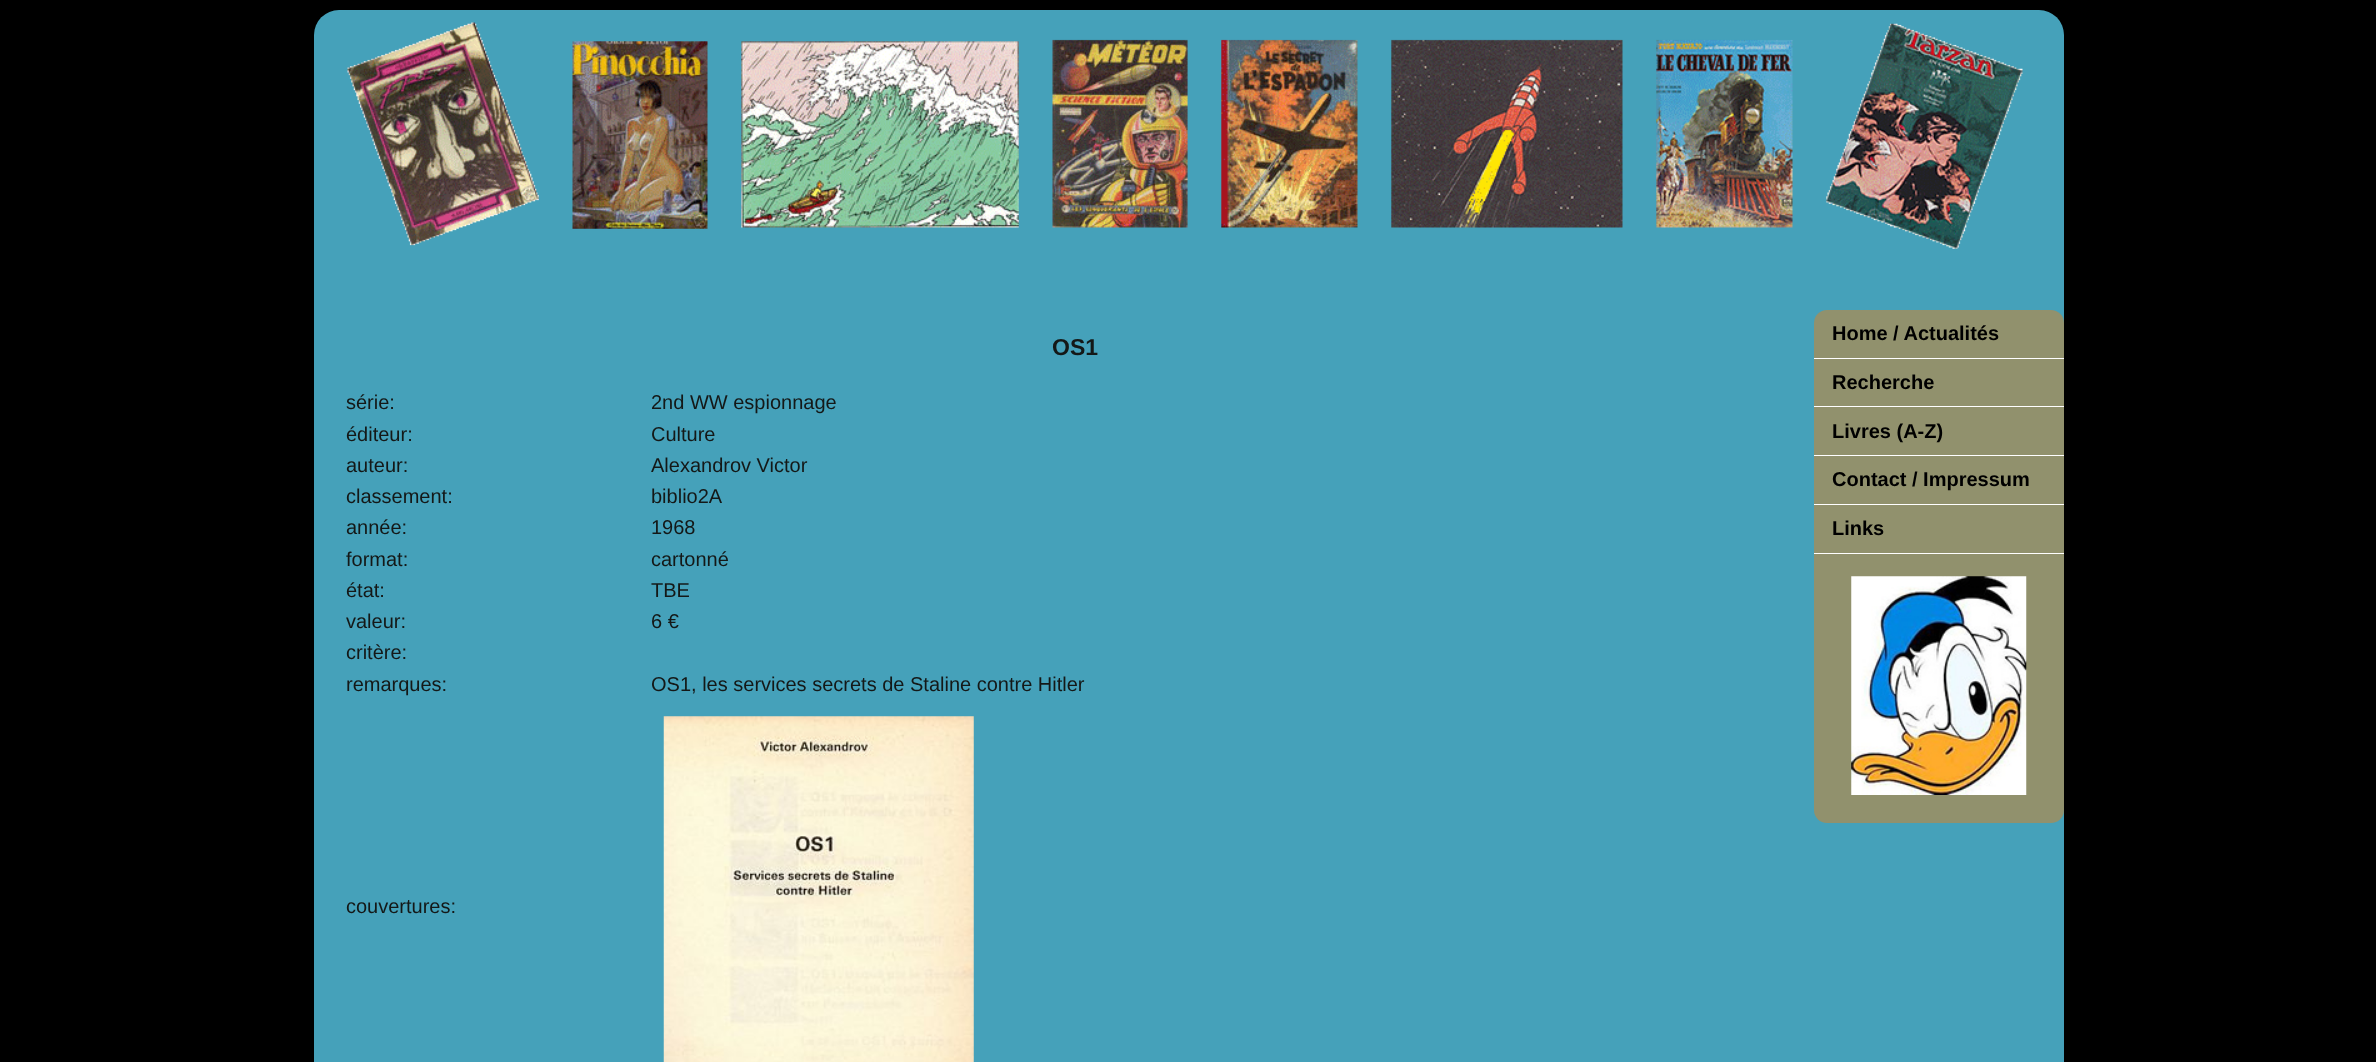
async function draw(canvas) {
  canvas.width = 2376
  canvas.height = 1062
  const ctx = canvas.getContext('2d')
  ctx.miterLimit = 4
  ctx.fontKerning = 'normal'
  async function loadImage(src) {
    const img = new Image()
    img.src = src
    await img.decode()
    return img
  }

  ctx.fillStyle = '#000'
  ctx.fillRect(0, 0, 2376, 1062)
  ctx.fillStyle = '#45a1ba'
  ctx.beginPath()
  ctx.roundRect(314, 10, 1750, 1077, 25)
  ctx.fill()
  ctx.drawImage(await loadImage('image0.png'), 347, 22, 1676, 227)
  ctx.font = 'bold 23px Liberation Sans'
  ctx.fillStyle = '#141817'
  ctx.fillText('OS1', 1052, 355)
  ctx.font = '20px Liberation Sans'
  ctx.fillText('série:', 346, 409)
  ctx.fillText('2nd WW espionnage', 651, 409)
  ctx.fillText('éditeur:', 346, 441)
  ctx.fillText('Culture', 651, 441)
  ctx.fillText('auteur:', 346, 472)
  ctx.fillText('Alexandrov Victor', 651, 472)
  ctx.fillText('classement:', 346, 503)
  ctx.fillText('biblio2A', 651, 503)
  ctx.fillText('année:', 346, 534)
  ctx.fillText('1968', 651, 534)
  ctx.fillText('format:', 346, 566)
  ctx.fillText('cartonné', 651, 566)
  ctx.fillText('état:', 346, 597)
  ctx.fillText('TBE', 651, 597)
  ctx.fillText('valeur:', 346, 628)
  ctx.fillText('6 €', 651, 628)
  ctx.fillText('critère:', 346, 659)
  ctx.fillText('remarques:', 346, 691)
  ctx.fillText('OS1, les services secrets de Staline contre Hitler', 651, 691)
  ctx.fillText('couvertures:', 346, 913)
  ctx.drawImage(await loadImage('image1.png'), 663, 716, 311, 346)
  ctx.fillStyle = '#91916d'
  ctx.beginPath()
  ctx.roundRect(1814, 310, 250, 513, 13)
  ctx.fill()
  ctx.fillStyle = '#fff'
  ctx.fillRect(1814, 358, 250, 1)
  ctx.font = 'bold 20px Liberation Sans'
  ctx.fillStyle = '#000'
  ctx.fillText('Home / Actualités', 1832, 340)
  ctx.fillStyle = '#fff'
  ctx.fillRect(1814, 406, 250, 1)
  ctx.fillStyle = '#000'
  ctx.fillText('Recherche', 1832, 389)
  ctx.fillStyle = '#fff'
  ctx.fillRect(1814, 455, 250, 1)
  ctx.fillStyle = '#000'
  ctx.fillText('Livres (A-Z)', 1832, 438)
  ctx.fillStyle = '#fff'
  ctx.fillRect(1814, 504, 250, 1)
  ctx.fillStyle = '#000'
  ctx.fillText('Contact / Impressum', 1832, 486)
  ctx.fillStyle = '#fff'
  ctx.fillRect(1814, 553, 250, 1)
  ctx.fillStyle = '#000'
  ctx.fillText('Links', 1832, 535)
  ctx.drawImage(await loadImage('image2.png'), 1851, 576, 176, 219)
}

draw(document.querySelector('canvas'))
